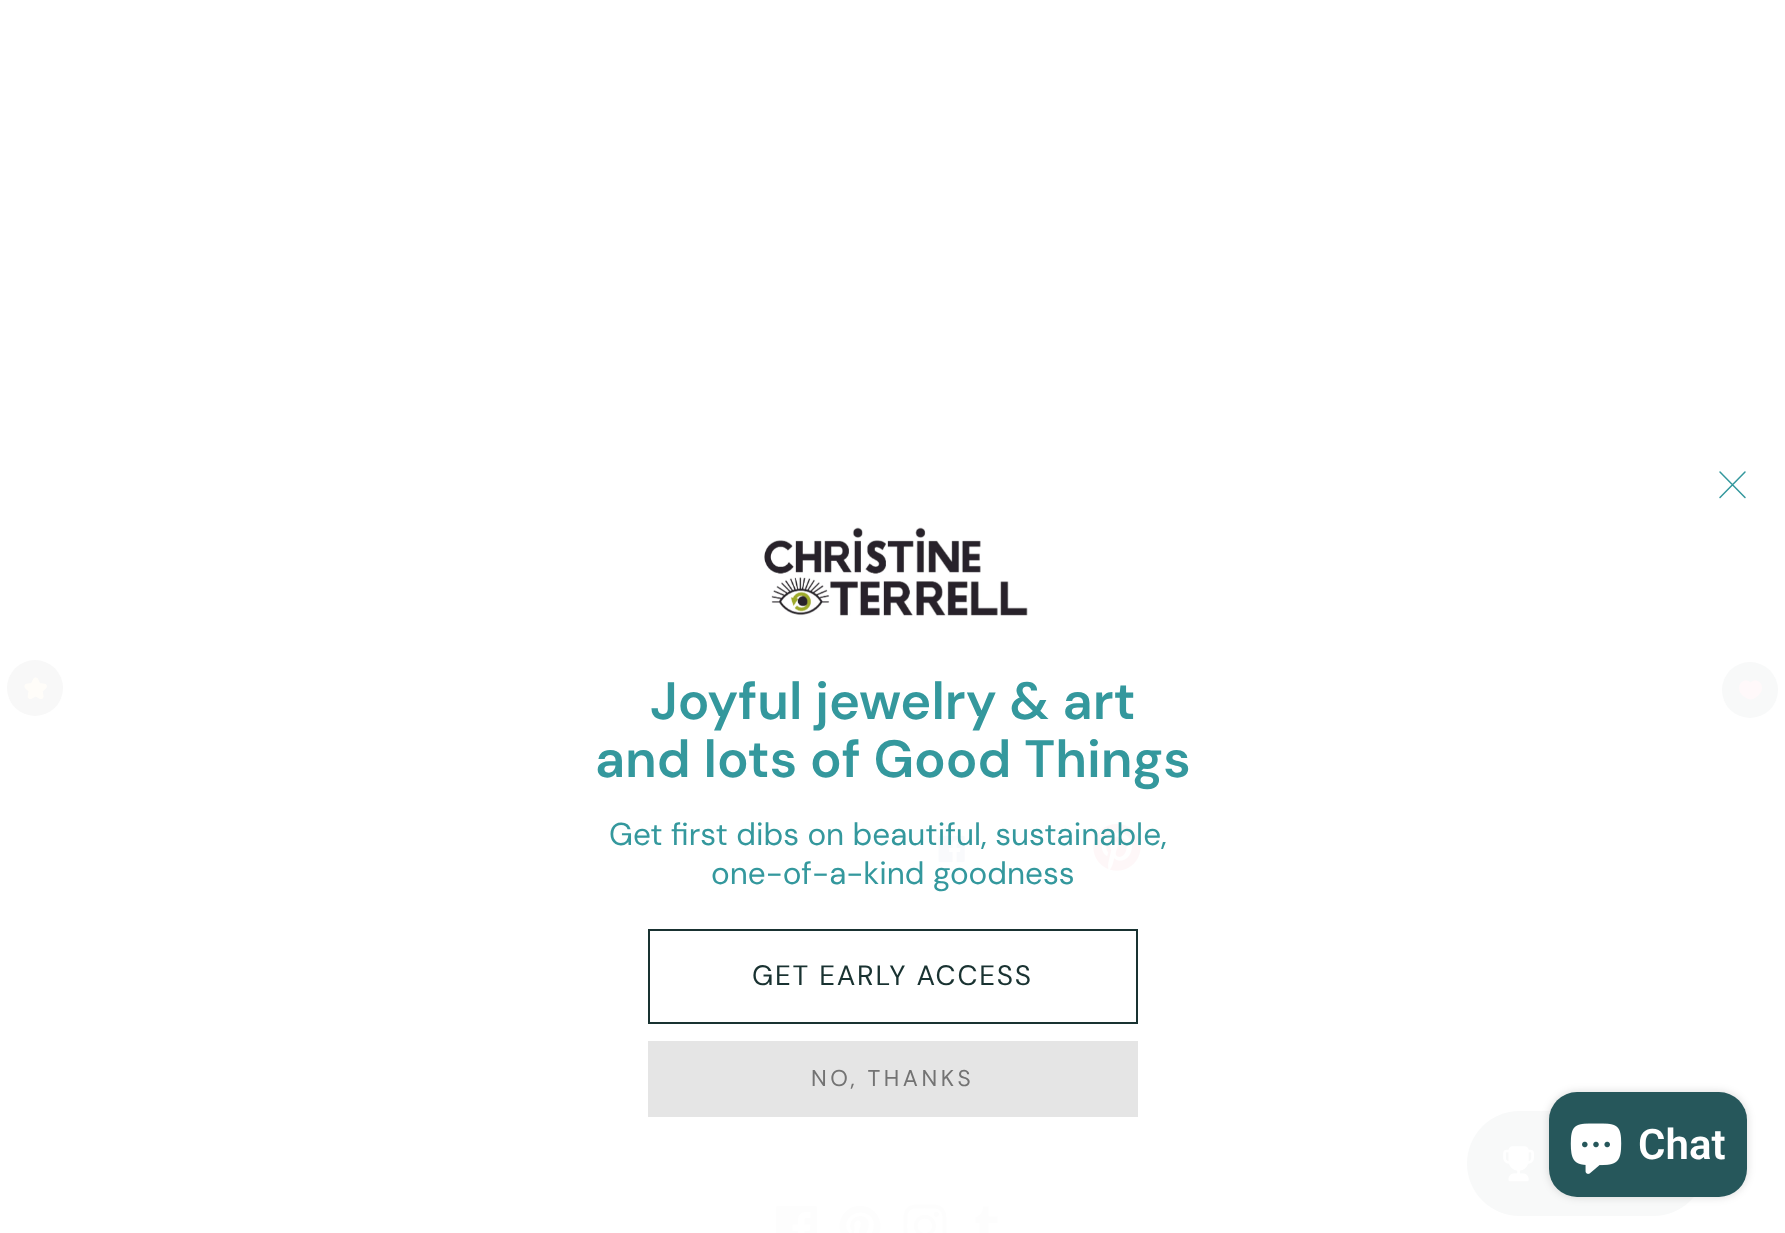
async function draw(canvas) {
  canvas.width = 1785
  canvas.height = 1233
  const ctx = canvas.getContext('2d')
  ctx.miterLimit = 4
  ctx.fontKerning = 'normal'
  async function loadImage(src) {
    const img = new Image()
    img.src = src
    await img.decode()
    return img
  }

  ctx.fillStyle = '#fff'
  ctx.fillRect(0, 0, 1785, 1233)
  ctx.fillStyle = '#f8f8f8'
  ctx.beginPath()
  ctx.arc(35, 688, 28, 0, 2 * Math.PI)
  ctx.fill()
  ctx.drawImage(await loadImage('image0.png'), 24, 677, 23, 23)
  ctx.fillStyle = '#f8f9f9'
  ctx.beginPath()
  ctx.arc(1750, 690, 28, 0, 2 * Math.PI)
  ctx.fill()
  ctx.fillStyle = '#fff9fa'
  ctx.beginPath()
  ctx.moveTo(1750.5, 682.5)
  ctx.bezierCurveTo(1743.5, 675.5, 1732, 688, 1744.5, 697)
  ctx.bezierCurveTo(1746.5, 698, 1748.5, 699.5, 1750.5, 699.5)
  ctx.bezierCurveTo(1752.5, 699.5, 1755, 698, 1756.5, 697)
  ctx.bezierCurveTo(1769, 688, 1758, 675.5, 1750.5, 682.5)
  ctx.closePath()
  ctx.fill()
  ctx.fillStyle = '#f8f9f9'
  ctx.beginPath()
  ctx.roundRect(1467, 1111, 239, 105, 52.5)
  ctx.fill()
  ctx.drawImage(await loadImage('image1.png'), 1503, 1146, 31, 36)
  ctx.beginPath()
  ctx.moveTo(1720, 472)
  ctx.lineTo(1745, 497.5)
  ctx.moveTo(1745, 472)
  ctx.lineTo(1720, 497.5)
  ctx.strokeStyle = '#34989d'
  ctx.lineWidth = 1.5
  ctx.lineCap = 'round'
  ctx.stroke()
  ctx.drawImage(await loadImage('image2.png'), 764, 527, 268, 100)
  ctx.font = '600 52.5px DM Sans'
  ctx.fillStyle = '#34989d'
  ctx.fillText('Joyful jewelry & art', 650, 719)
  ctx.fillText('and lots of Good Things', 595, 777)
  ctx.drawImage(await loadImage('image3.png'), 938, 835, 27, 28)
  ctx.drawImage(await loadImage('image4.png'), 1093, 823, 48, 48)
  ctx.font = '31.5px DM Sans'
  ctx.fillText('Get first dibs on beautiful, sustainable,', 609, 845)
  ctx.fillText('one-of-a-kind goodness', 711, 884)
  ctx.strokeStyle = '#193231'
  ctx.lineWidth = 2
  ctx.strokeRect(649, 930, 488, 93)
  ctx.letterSpacing = '1.75px'
  ctx.font = '28px DM Sans'
  ctx.fillStyle = '#193231'
  ctx.fillText('GET EARLY ACCESS', 752, 985)
  ctx.fillStyle = '#e5e5e5'
  ctx.fillRect(648, 1041, 490, 76)
  ctx.letterSpacing = '3.5px'
  ctx.font = '22.75px DM Sans'
  ctx.fillStyle = '#737373'
  ctx.fillText('NO, THANKS', 811, 1086)
  ctx.drawImage(await loadImage('image5.png'), 776, 1205, 41, 28)
  ctx.drawImage(await loadImage('image6.png'), 839, 1205, 42, 28)
  ctx.drawImage(await loadImage('image7.png'), 903, 1204, 44, 29)
  ctx.drawImage(await loadImage('image8.png'), 975, 1206, 23, 27)
  ctx.fillStyle = '#00000026'
  ctx.filter = 'blur(4.5px)'
  ctx.beginPath()
  ctx.roundRect(1549, 1092, 198, 105, 28)
  ctx.fill()
  ctx.filter = 'none'
  ctx.fillStyle = '#26575b'
  ctx.beginPath()
  ctx.roundRect(1549, 1092, 198, 105, 28)
  ctx.fill()
  ctx.drawImage(await loadImage('image9.png'), 1570, 1123, 52, 51)
  ctx.letterSpacing = '0px'
  ctx.font = '600 42px Roboto'
  ctx.fillStyle = '#fff'
  ctx.fillText('Chat', 1638, 1159)
}

draw(document.querySelector('canvas'))
